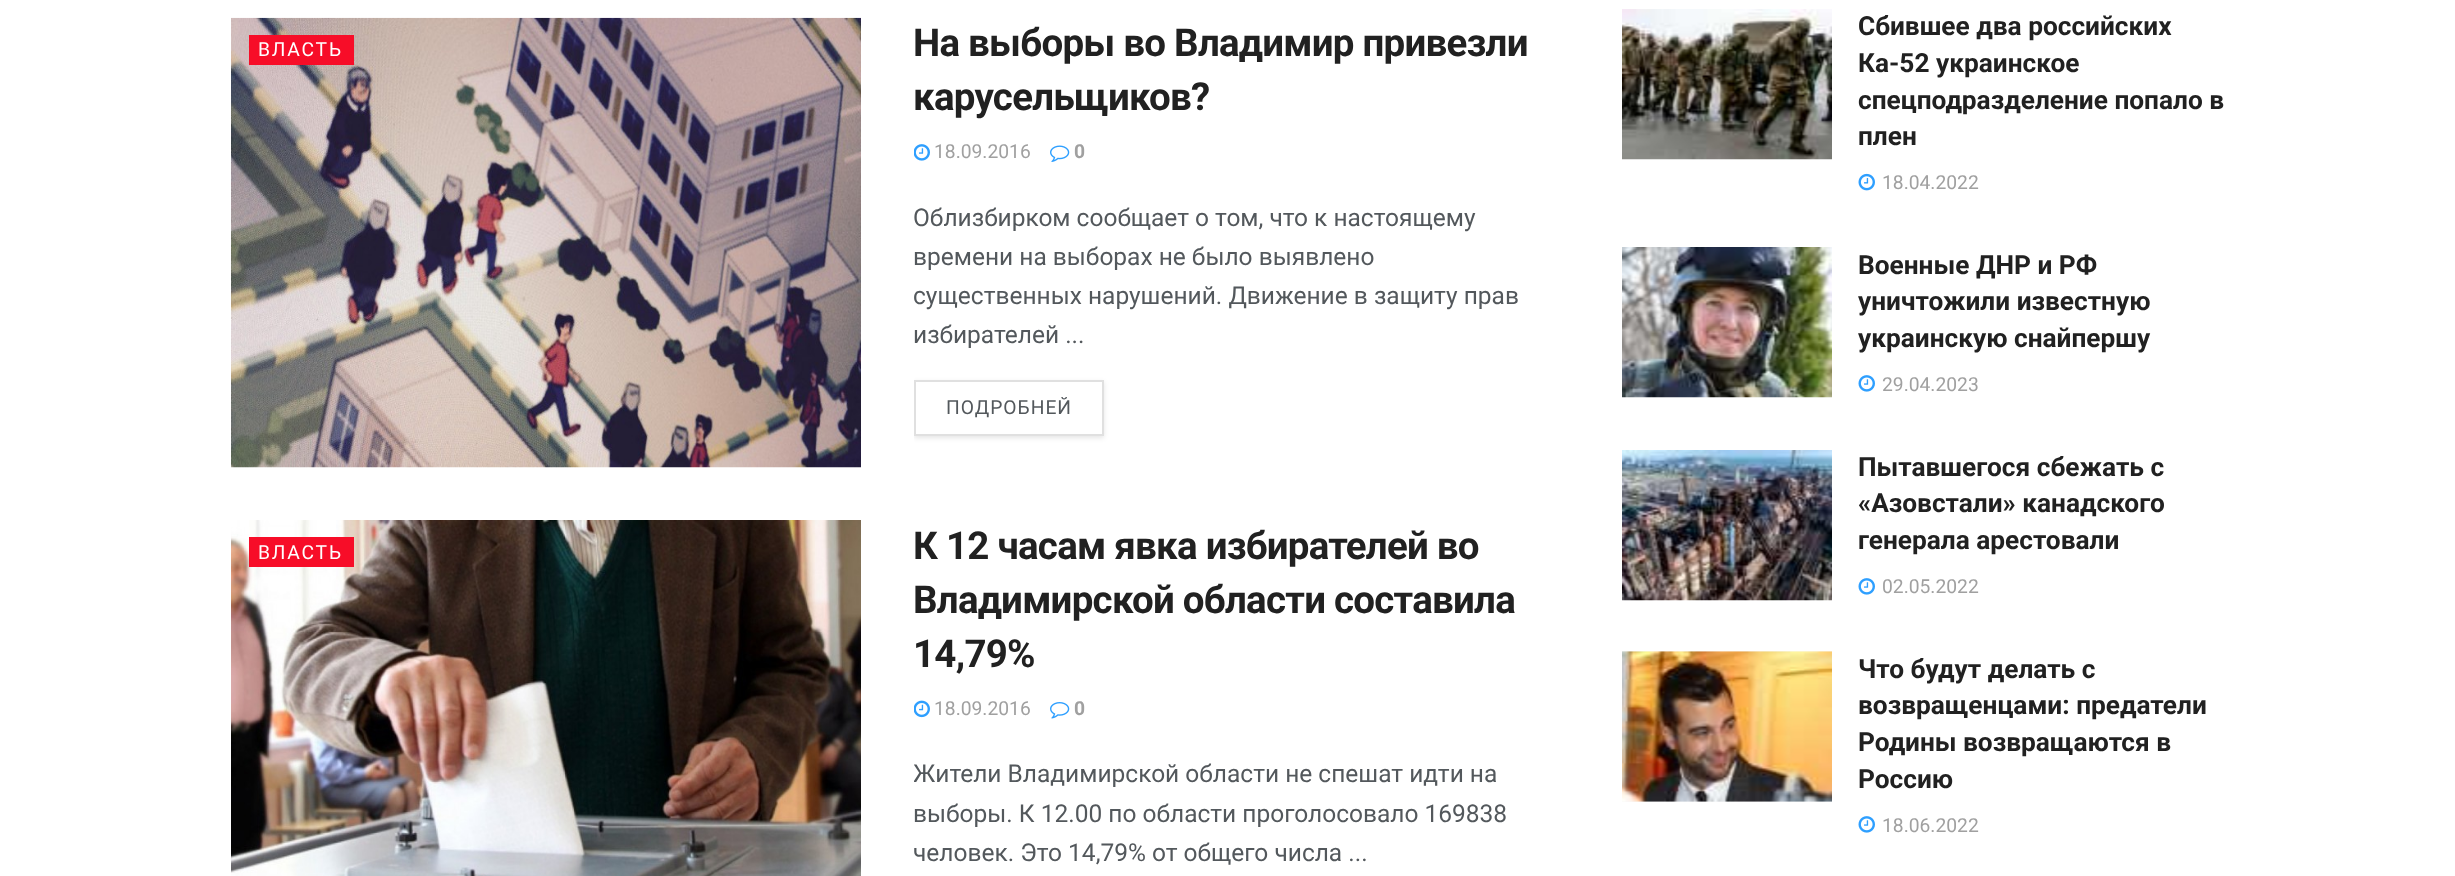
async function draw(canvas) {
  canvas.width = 2455
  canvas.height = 876
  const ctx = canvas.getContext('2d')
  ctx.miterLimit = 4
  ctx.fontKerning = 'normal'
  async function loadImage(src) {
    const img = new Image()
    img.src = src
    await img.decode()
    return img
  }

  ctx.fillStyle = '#fff'
  ctx.fillRect(0, 0, 2455, 876)
  ctx.drawImage(await loadImage('image0.png'), 231, 17, 630, 451)
  ctx.fillStyle = '#f70d28'
  ctx.fillRect(249, 35, 105, 30)
  ctx.letterSpacing = '1.75px'
  ctx.font = '19.25px Roboto'
  ctx.fillStyle = '#fff'
  ctx.fillText('ВЛАСТЬ', 258, 56)
  ctx.letterSpacing = '-0.75px'
  ctx.font = 'bold 38.5px Roboto'
  ctx.fillStyle = '#212121'
  ctx.fillText('На выборы во Владимир привезли', 913, 56)
  ctx.fillText('карусельщиков?', 913, 110)
  ctx.drawImage(await loadImage('image1.png'), 914, 144, 16, 17)
  ctx.letterSpacing = '0px'
  ctx.font = '19.25px Roboto'
  ctx.fillStyle = '#a0a0a0'
  ctx.fillText('18.09.2016', 934, 158)
  ctx.drawImage(await loadImage('image2.png'), 1050, 145, 20, 17)
  ctx.font = 'bold 19.25px Roboto'
  ctx.fillText('0', 1074, 158)
  ctx.font = '24.5px Roboto'
  ctx.fillStyle = '#53585c'
  ctx.fillText('Облизбирком сообщает о том, что к настоящему', 913, 226)
  ctx.fillText('времени на выборах не было выявлено', 913, 265)
  ctx.save()
  ctx.beginPath()
  ctx.rect(914, 18, 630, 427)
  ctx.clip()
  ctx.fillText('существенных нарушений. Движение в защиту прав', 913, 304)
  ctx.restore()
  ctx.fillText('избирателей ...', 913, 343)
  ctx.save()
  ctx.beginPath()
  ctx.rect(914, 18, 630, 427)
  ctx.clip()
  ctx.beginPath()
  ctx.moveTo(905, 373)
  ctx.lineTo(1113, 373)
  ctx.lineTo(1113, 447)
  ctx.lineTo(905, 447)
  ctx.closePath()
  ctx.moveTo(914, 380)
  ctx.lineTo(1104, 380)
  ctx.lineTo(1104, 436)
  ctx.lineTo(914, 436)
  ctx.closePath()
  ctx.clip('evenodd')
  ctx.fillStyle = '#0000001a'
  ctx.filter = 'blur(2.5px)'
  ctx.beginPath()
  ctx.rect(914, 382, 190, 56)
  ctx.fill()
  ctx.filter = 'none'
  ctx.restore()
  ctx.strokeStyle = '#e0e0e0'
  ctx.lineWidth = 2
  ctx.strokeRect(915, 381, 188, 54)
  ctx.letterSpacing = '1px'
  ctx.font = '19.25px Roboto'
  ctx.fillText('ПОДРОБНЕЙ', 946, 414)
  ctx.drawImage(await loadImage('image3.png'), 231, 520, 630, 356)
  ctx.fillStyle = '#f70d28'
  ctx.fillRect(249, 537, 105, 30)
  ctx.letterSpacing = '1.75px'
  ctx.fillStyle = '#fff'
  ctx.fillText('ВЛАСТЬ', 258, 559)
  ctx.letterSpacing = '-0.75px'
  ctx.font = 'bold 38.5px Roboto'
  ctx.fillStyle = '#212121'
  ctx.fillText('К 12 часам явка избирателей во', 913, 559)
  ctx.fillText('Владимирской области составила', 913, 613)
  ctx.fillText('14,79%', 913, 667)
  ctx.drawImage(await loadImage('image4.png'), 914, 700, 16, 18)
  ctx.letterSpacing = '0px'
  ctx.font = '19.25px Roboto'
  ctx.fillStyle = '#a0a0a0'
  ctx.fillText('18.09.2016', 934, 715)
  ctx.drawImage(await loadImage('image5.png'), 1050, 702, 20, 17)
  ctx.font = 'bold 19.25px Roboto'
  ctx.fillText('0', 1074, 715)
  ctx.save()
  ctx.beginPath()
  ctx.rect(914, 520, 630, 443)
  ctx.clip()
  ctx.font = '24.5px Roboto'
  ctx.fillStyle = '#53585c'
  ctx.fillText('Жители Владимирской области не спешат идти на', 913, 782)
  ctx.restore()
  ctx.font = '24.5px Roboto'
  ctx.fillStyle = '#53585c'
  ctx.fillText('выборы. К 12.00 по области проголосовало 169838', 913, 822)
  ctx.save()
  ctx.beginPath()
  ctx.rect(914, 520, 630, 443)
  ctx.clip()
  ctx.fillText('человек. Это 14,79% от общего числа ...', 913, 861)
  ctx.restore()
  ctx.drawImage(await loadImage('image6.png'), 1622, 9, 210, 151)
  ctx.font = 'bold 26.25px Roboto'
  ctx.fillStyle = '#212121'
  ctx.fillText('Сбившее два российских', 1858, 35)
  ctx.fillText('Ка-52 украинское', 1858, 72)
  ctx.fillText('спецподразделение попало в', 1858, 109)
  ctx.fillText('плен', 1858, 145)
  ctx.drawImage(await loadImage('image7.png'), 1858, 173, 17, 18)
  ctx.font = '19.25px Roboto'
  ctx.fillStyle = '#a0a0a0'
  ctx.fillText('18.04.2022', 1882, 189)
  ctx.drawImage(await loadImage('image8.png'), 1622, 247, 210, 151)
  ctx.font = 'bold 26.25px Roboto'
  ctx.fillStyle = '#212121'
  ctx.fillText('Военные ДНР и РФ', 1858, 274)
  ctx.fillText('уничтожили известную', 1858, 310)
  ctx.fillText('украинскую снайпершу', 1858, 347)
  ctx.drawImage(await loadImage('image9.png'), 1858, 375, 17, 17)
  ctx.font = '19.25px Roboto'
  ctx.fillStyle = '#a0a0a0'
  ctx.fillText('29.04.2023', 1882, 391)
  ctx.drawImage(await loadImage('image10.png'), 1622, 450, 210, 151)
  ctx.font = 'bold 26.25px Roboto'
  ctx.fillStyle = '#212121'
  ctx.fillText('Пытавшегося сбежать с', 1858, 476)
  ctx.fillText('«Азовстали» канадского', 1858, 512)
  ctx.fillText('генерала арестовали', 1858, 549)
  ctx.drawImage(await loadImage('image9.png'), 1858, 578, 17, 17)
  ctx.font = '19.25px Roboto'
  ctx.fillStyle = '#a0a0a0'
  ctx.fillText('02.05.2022', 1882, 593)
  ctx.fillStyle = '#f7f7f7'
  ctx.fillRect(1622, 651, 210, 151)
  ctx.drawImage(await loadImage('image11.png'), 1622, 651, 210, 151)
  ctx.font = 'bold 26.25px Roboto'
  ctx.fillStyle = '#212121'
  ctx.fillText('Что будут делать с', 1858, 678)
  ctx.fillText('возвращенцами: предатели', 1858, 714)
  ctx.fillText('Родины возвращаются в', 1858, 751)
  ctx.fillText('Россию', 1858, 788)
  ctx.drawImage(await loadImage('image9.png'), 1858, 816, 17, 17)
  ctx.font = '19.25px Roboto'
  ctx.fillStyle = '#a0a0a0'
  ctx.fillText('18.06.2022', 1882, 832)
}

draw(document.querySelector('canvas'))
